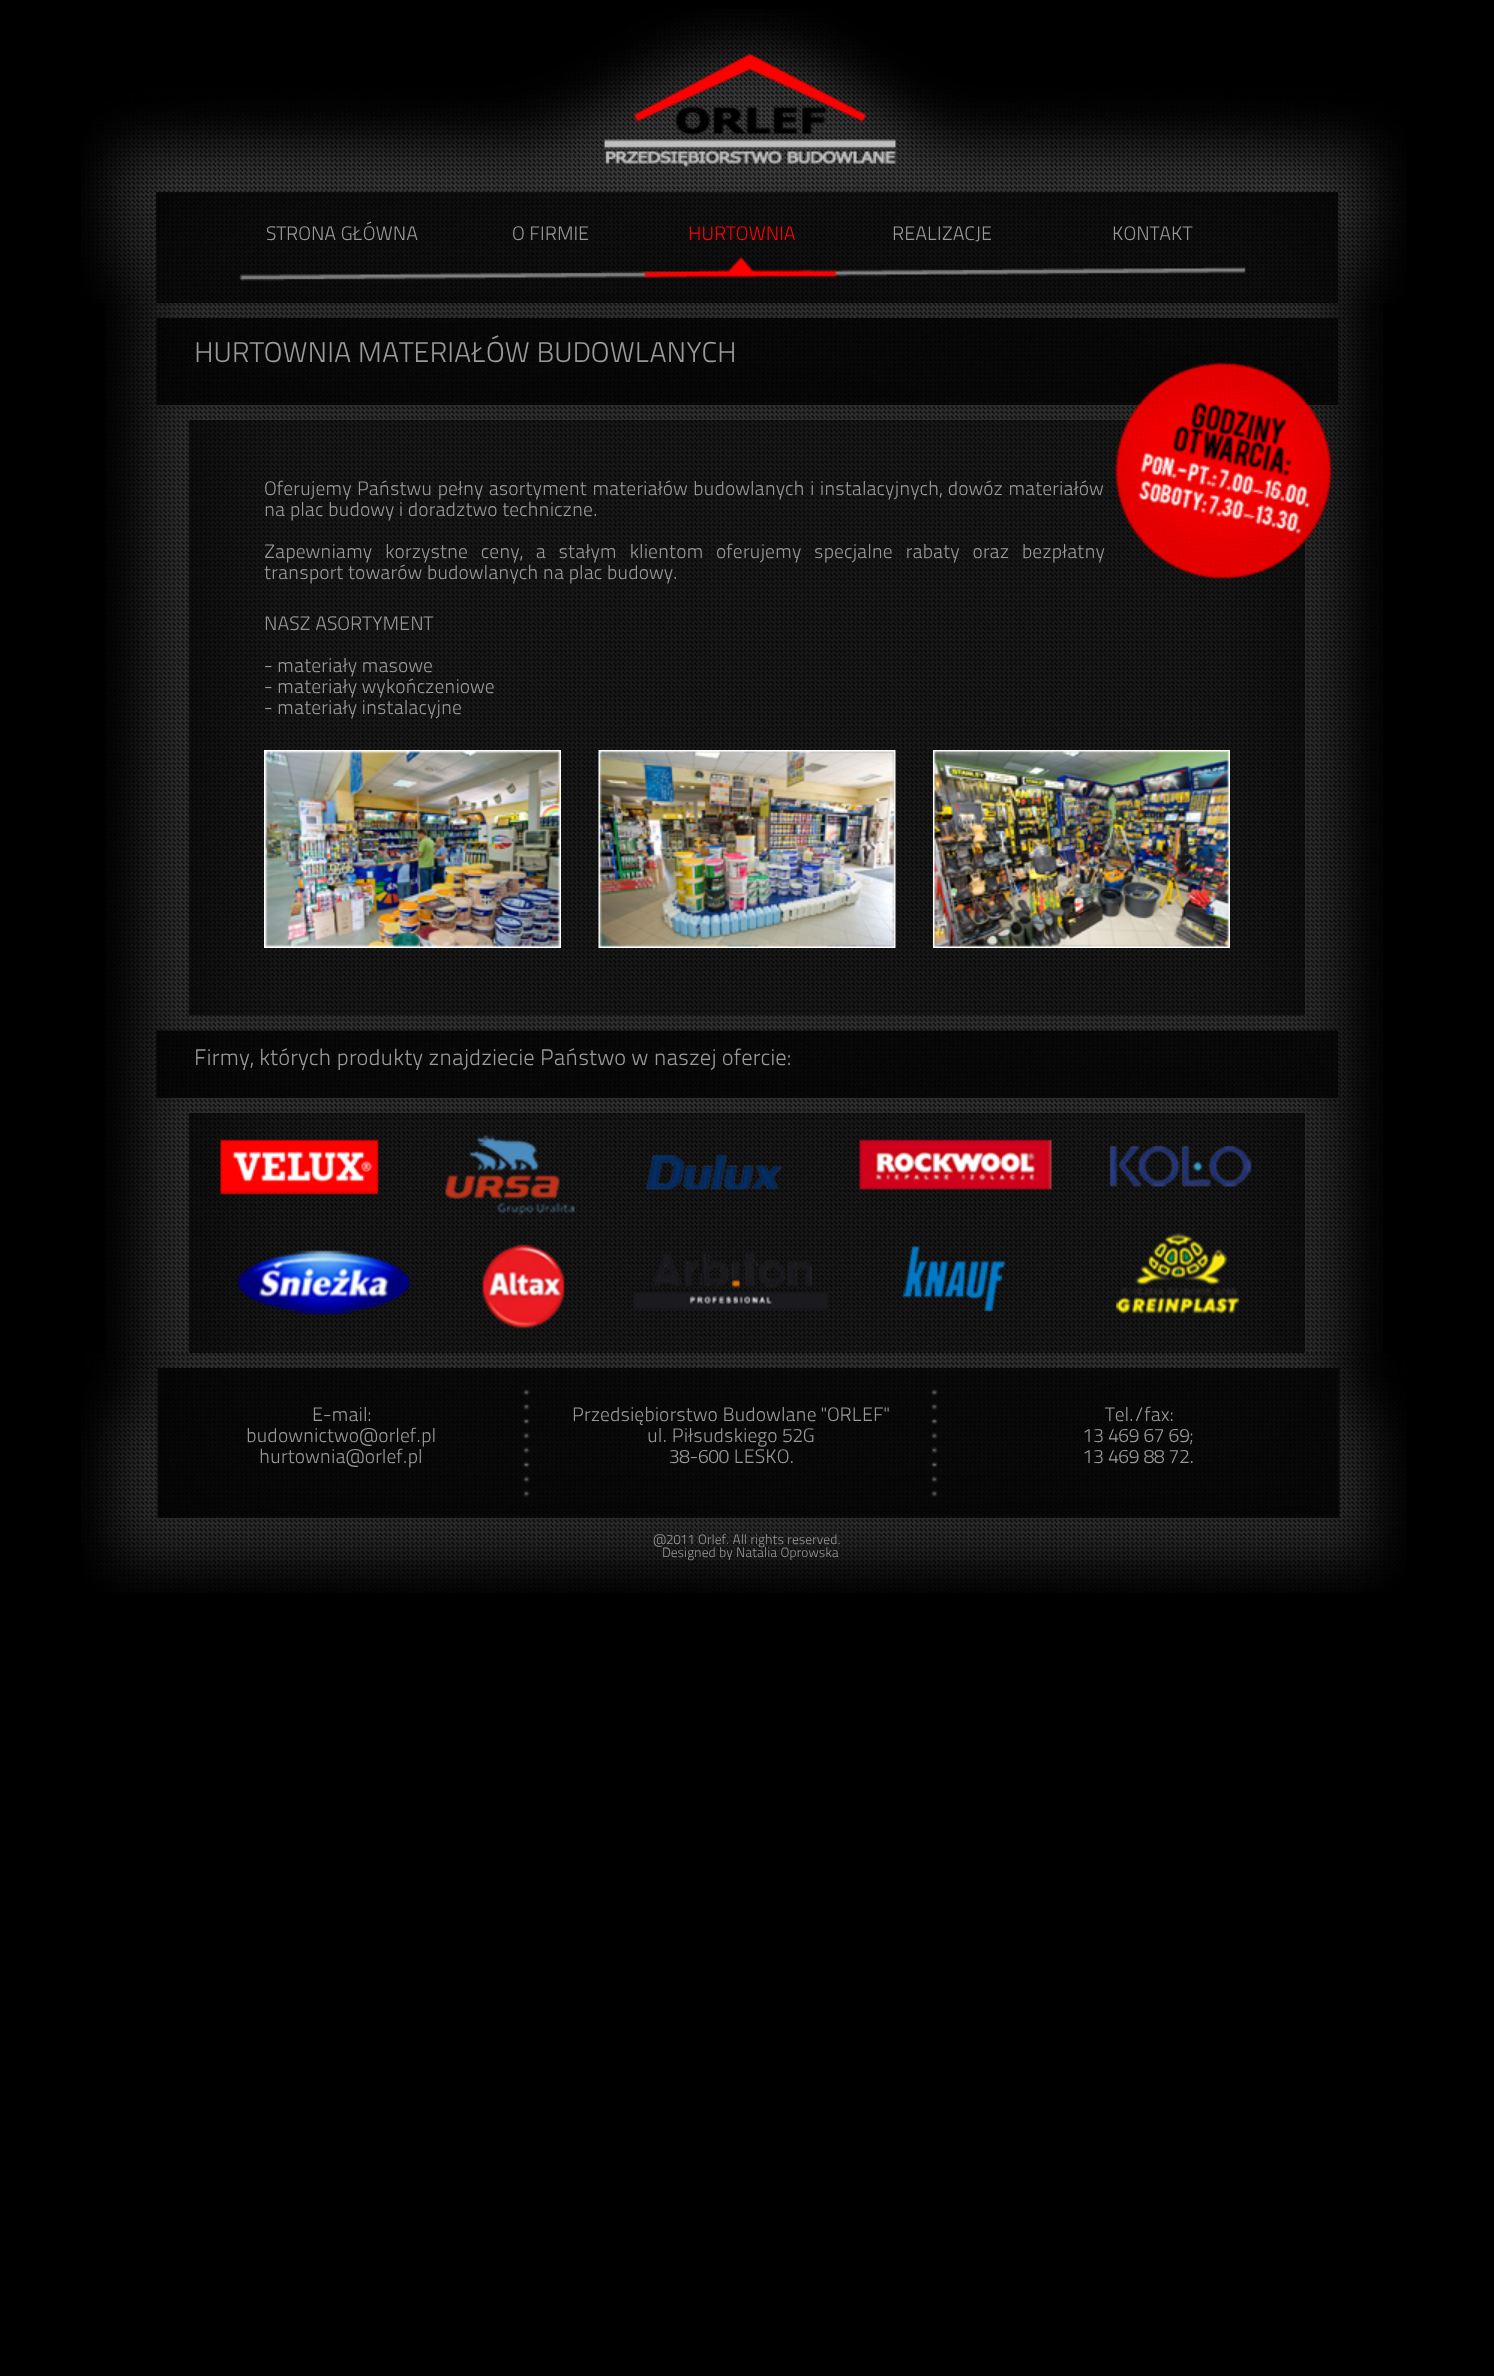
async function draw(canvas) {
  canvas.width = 1494
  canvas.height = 2376
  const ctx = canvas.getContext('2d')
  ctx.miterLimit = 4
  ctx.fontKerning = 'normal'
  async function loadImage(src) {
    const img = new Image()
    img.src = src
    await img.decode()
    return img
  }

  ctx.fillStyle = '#000'
  ctx.fillRect(0, 0, 1494, 2376)
  ctx.drawImage(await loadImage('image0.png'), 81, 9, 1326, 294)
  ctx.drawImage(await loadImage('image1.png'), 604, 53, 292, 114)
  ctx.drawImage(await loadImage('image2.png'), 156, 192, 1182, 111)
  ctx.font = '300 19.5px "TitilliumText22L"'
  ctx.fillStyle = '#999'
  ctx.fillText('STRONA GŁÓWNA', 266, 240)
  ctx.fillText('O FIRMIE', 512, 240)
  ctx.fillStyle = '#f00'
  ctx.fillText('HURTOWNIA', 688, 240)
  ctx.fillStyle = '#999'
  ctx.fillText('REALIZACJE', 892, 240)
  ctx.fillText('KONTAKT', 1112, 240)
  ctx.drawImage(await loadImage('image3.png'), 105, 303, 1278, 1050)
  ctx.drawImage(await loadImage('image4.png'), 156, 318, 1182, 87)
  ctx.font = '300 28.5px "TitilliumText22L"'
  ctx.fillText('HURTOWNIA MATERIAŁÓW BUDOWLANYCH', 194, 362)
  ctx.drawImage(await loadImage('image5.png'), 189, 420, 1116, 596)
  ctx.wordSpacing = '0.75px'
  ctx.font = '300 19.5px "TitilliumText22L"'
  ctx.fillText('Oferujemy Państwu pełny asortyment materiałów budowlanych', 264, 495)
  ctx.fillText('i instalacyjnych, dowóz materiałów', 810, 495)
  ctx.wordSpacing = '0px'
  ctx.fillText('na plac budowy i doradztwo techniczne.', 264, 516)
  ctx.wordSpacing = '8.25px'
  ctx.fillText('Zapewniamy korzystne ceny, a stałym klientom oferujemy specjalne rabaty oraz bezpłatny', 264, 558)
  ctx.wordSpacing = '0px'
  ctx.fillText('transport towarów budowlanych na plac budowy.', 264, 579)
  ctx.fillText('NASZ ASORTYMENT', 264, 630)
  ctx.fillText('- materiały masowe', 264, 672)
  ctx.fillText('- materiały wykończeniowe', 264, 693)
  ctx.fillText('- materiały instalacyjne', 264, 714)
  ctx.drawImage(await loadImage('image6.png'), 264, 750, 297, 198)
  ctx.drawImage(await loadImage('image7.png'), 598, 750, 298, 198)
  ctx.drawImage(await loadImage('image8.png'), 933, 750, 297, 198)
  ctx.drawImage(await loadImage('image9.png'), 156, 1030, 1182, 68)
  ctx.font = '300 22.5px "TitilliumText22L"'
  ctx.fillText('Firmy, których produkty znajdziecie Państwo w naszej ofercie:', 194, 1065)
  ctx.drawImage(await loadImage('image10.png'), 189, 1113, 1116, 240)
  ctx.drawImage(await loadImage('image11.png'), 220, 1139, 159, 56)
  ctx.drawImage(await loadImage('image12.png'), 445, 1135, 130, 82)
  ctx.drawImage(await loadImage('image13.png'), 646, 1154, 136, 36)
  ctx.drawImage(await loadImage('image14.png'), 859, 1139, 193, 51)
  ctx.drawImage(await loadImage('image15.png'), 1109, 1145, 143, 42)
  ctx.drawImage(await loadImage('image16.png'), 238, 1250, 172, 65)
  ctx.drawImage(await loadImage('image17.png'), 482, 1244, 83, 85)
  ctx.drawImage(await loadImage('image18.png'), 633, 1251, 195, 59)
  ctx.drawImage(await loadImage('image19.png'), 902, 1246, 104, 66)
  ctx.drawImage(await loadImage('image20.png'), 1115, 1232, 125, 83)
  ctx.drawImage(await loadImage('image21.png'), 81, 1353, 1326, 240)
  ctx.drawImage(await loadImage('image22.png'), 1114, 361, 219, 219)
  ctx.drawImage(await loadImage('image23.png'), 157, 1368, 1183, 150)
  ctx.font = '300 19.5px "TitilliumText22L"'
  ctx.fillText('E-mail:', 312, 1421)
  ctx.fillText('budownictwo@orlef.pl', 246, 1442)
  ctx.fillText('hurtownia@orlef.pl', 259, 1463)
  ctx.fillText('Przedsiębiorstwo Budowlane "ORLEF"', 572, 1421)
  ctx.fillText('ul. Piłsudskiego 52G', 647, 1442)
  ctx.fillText('38-600 LESKO.', 669, 1463)
  ctx.fillText('Tel./fax:', 1105, 1421)
  ctx.fillText('13 469 67 69;', 1083, 1442)
  ctx.fillText('13 469 88 72.', 1083, 1463)
  ctx.font = '300 13.5px "TitilliumText22L"'
  ctx.fillText('@2011 Orlef. All rights reserved.', 653, 1544)
  ctx.fillText('Designed by Natalia Oprowska', 662, 1557)
}

draw(document.querySelector('canvas'))
